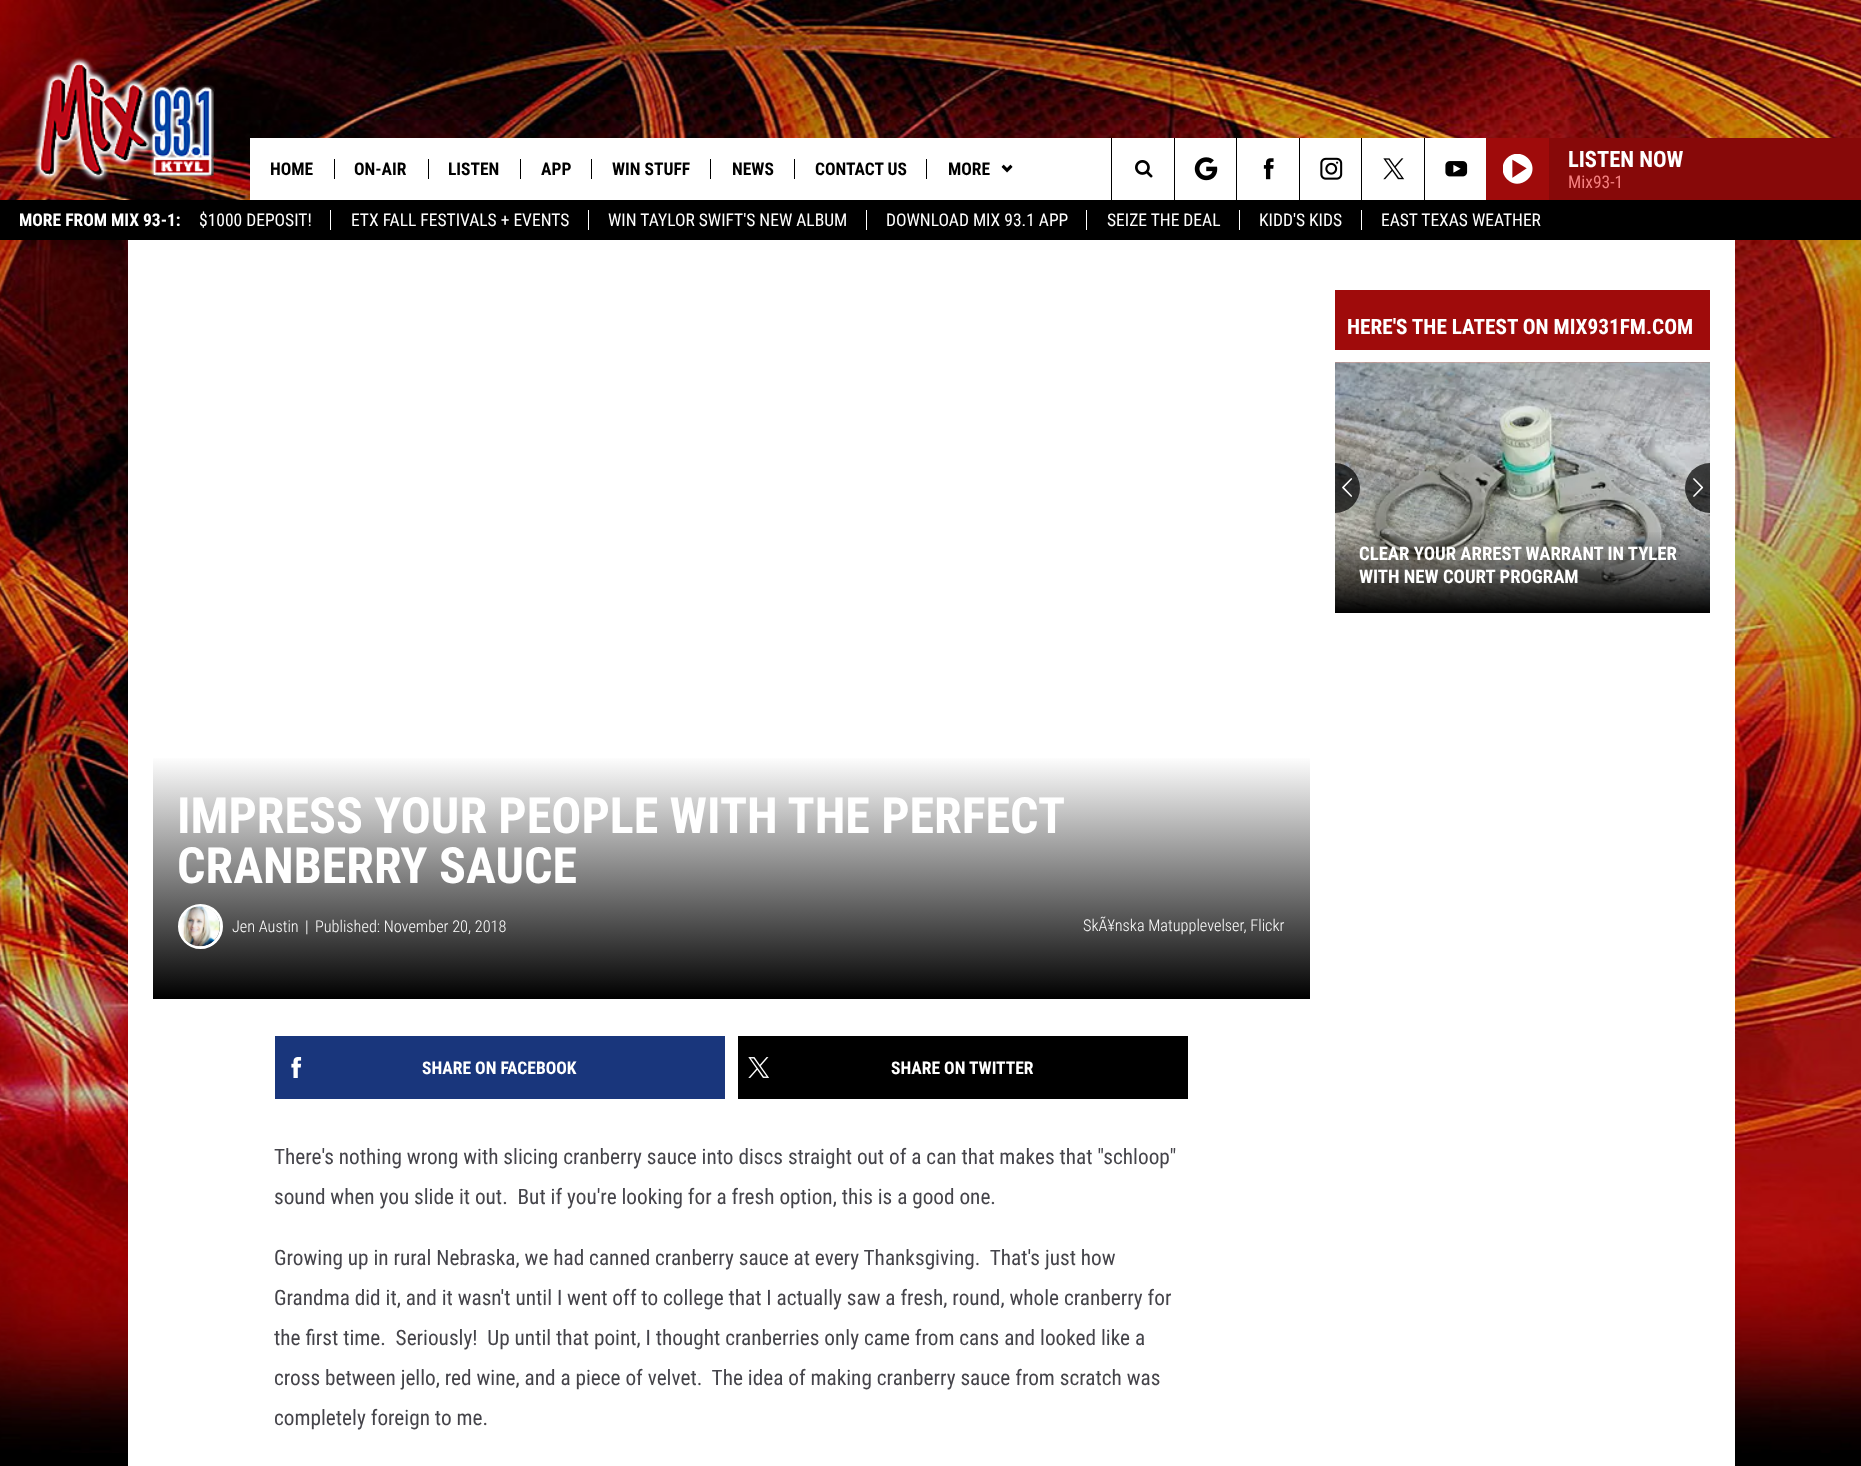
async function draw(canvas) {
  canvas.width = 1861
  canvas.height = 1466
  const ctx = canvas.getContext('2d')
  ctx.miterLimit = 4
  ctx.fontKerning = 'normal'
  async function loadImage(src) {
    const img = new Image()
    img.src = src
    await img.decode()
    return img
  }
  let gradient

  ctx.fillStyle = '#000'
  ctx.fillRect(0, 0, 1861, 1466)
  ctx.drawImage(await loadImage('image0.png'), 0, 240, 1861, 1213)
  ctx.drawImage(await loadImage('image1.png'), 0, 0, 1861, 200)
  ctx.drawImage(await loadImage('image2.png'), 33, 57, 182, 125)
  ctx.fillStyle = '#fff'
  ctx.fillRect(250, 138, 1236, 62)
  ctx.font = 'bold 17.5px Roboto Condensed'
  ctx.fillStyle = '#000'
  ctx.fillText('HOME', 270, 175)
  ctx.fillRect(334, 159, 1, 20)
  ctx.fillText('ON-AIR', 354, 175)
  ctx.fillRect(428, 159, 1, 20)
  ctx.fillText('LISTEN', 448, 175)
  ctx.fillRect(520, 159, 1, 20)
  ctx.fillText('APP', 541, 175)
  ctx.fillRect(591, 159, 1, 20)
  ctx.fillText('WIN STUFF', 612, 175)
  ctx.fillRect(710, 159, 1, 20)
  ctx.fillText('NEWS', 732, 175)
  ctx.fillRect(794, 159, 1, 20)
  ctx.fillText('CONTACT US', 815, 175)
  ctx.fillRect(926, 159, 1, 20)
  ctx.fillText('MORE', 948, 175)
  ctx.drawImage(await loadImage('image3.png'), 1001, 164, 12, 9)
  ctx.fillRect(1111, 138, 1, 62)
  ctx.drawImage(await loadImage('image4.png'), 1135, 160, 18, 18)
  ctx.fillRect(1174, 138, 1, 62)
  ctx.drawImage(await loadImage('image5.png'), 1194, 157, 24, 24)
  ctx.fillRect(1236, 138, 1, 62)
  ctx.drawImage(await loadImage('image6.png'), 1263, 158, 11, 22)
  ctx.fillRect(1299, 138, 1, 62)
  ctx.drawImage(await loadImage('image7.png'), 1320, 157, 23, 23)
  ctx.fillRect(1361, 138, 1, 62)
  ctx.drawImage(await loadImage('image8.png'), 1383, 158, 22, 22)
  ctx.fillRect(1424, 138, 1, 62)
  ctx.drawImage(await loadImage('image9.png'), 1445, 161, 23, 16)
  ctx.fillStyle = '#9f0b0b'
  ctx.fillRect(1486, 138, 63, 62)
  ctx.drawImage(await loadImage('image10.png'), 1503, 154, 30, 30)
  ctx.fillStyle = '#870909'
  ctx.fillRect(1549, 138, 312, 62)
  ctx.font = 'bold 22.5px Roboto Condensed'
  ctx.fillStyle = '#fff'
  ctx.fillText('LISTEN NOW', 1568, 167)
  ctx.font = '17.5px Roboto Condensed'
  ctx.fillStyle = '#f68080'
  ctx.fillText('Mix93-1', 1568, 188)
  ctx.font = 'bold 17.5px Roboto Condensed'
  ctx.fillStyle = '#fff'
  ctx.fillText('MORE FROM MIX 93-1:', 19, 226)
  ctx.font = '17.5px Roboto Condensed'
  ctx.fillText('$1000 DEPOSIT!', 199, 226)
  ctx.fillText('ETX FALL FESTIVALS + EVENTS', 351, 226)
  ctx.fillRect(330, 210, 1, 20)
  ctx.fillText('WIN TAYLOR SWIFT\'S NEW ALBUM', 608, 226)
  ctx.fillRect(588, 210, 1, 20)
  ctx.fillText('DOWNLOAD MIX 93.1 APP', 886, 226)
  ctx.fillRect(866, 210, 1, 20)
  ctx.fillText('SEIZE THE DEAL', 1107, 226)
  ctx.fillRect(1086, 210, 1, 20)
  ctx.fillText('KIDD\'S KIDS', 1259, 226)
  ctx.fillRect(1239, 210, 1, 20)
  ctx.fillText('EAST TEXAS WEATHER', 1381, 226)
  ctx.fillRect(1361, 210, 1, 20)
  ctx.fillRect(128, 240, 1607, 1226)
  ctx.fillStyle = '#9f0b0b'
  ctx.fillRect(1335, 290, 375, 60)
  ctx.font = 'bold 21.25px Roboto Condensed'
  ctx.fillStyle = '#fff'
  ctx.fillText('HERE\'S THE LATEST ON MIX931FM.COM', 1347, 334)
  ctx.drawImage(await loadImage('image11.png'), 1335, 362, 375, 251)
  ctx.drawImage(await loadImage('image14.png'), 1335, 362, 375, 251)
  ctx.fillStyle = '#000000b3'
  ctx.beginPath()
  ctx.roundRect(1335, 463, 25, 50, [0, 25, 25, 0])
  ctx.fill()
  ctx.drawImage(await loadImage('image12.png'), 1342, 478, 11, 19)
  ctx.beginPath()
  ctx.roundRect(1685, 463, 25, 50, [25, 0, 0, 25])
  ctx.fill()
  ctx.drawImage(await loadImage('image13.png'), 1693, 478, 11, 19)
  gradient = ctx.createLinearGradient(1523, 530, 1523, 613)
  gradient.addColorStop(0, '#00000000')
  gradient.addColorStop(1, '#000')
  ctx.fillStyle = gradient
  ctx.fillRect(1335, 532, 375, 81)
  ctx.font = 'bold 18.75px Roboto Condensed'
  ctx.fillStyle = '#fff'
  ctx.fillText('CLEAR YOUR ARREST WARRANT IN TYLER', 1359, 560)
  ctx.fillText('WITH NEW COURT PROGRAM', 1359, 583)
  gradient = ctx.createLinearGradient(731, 756, 731, 999)
  gradient.addColorStop(0, '#fff')
  gradient.addColorStop(1, '#000')
  ctx.fillStyle = gradient
  ctx.fillRect(153, 758, 1157, 241)
  ctx.wordSpacing = '-0.25px'
  ctx.font = 'bold 50px Roboto Condensed'
  ctx.fillStyle = '#fff'
  ctx.fillText('IMPRESS YOUR PEOPLE WITH THE PERFECT', 177, 833)
  ctx.wordSpacing = '0px'
  ctx.fillText('CRANBERRY SAUCE', 177, 883)
  ctx.beginPath()
  ctx.arc(200.5, 926.5, 21, 0, 2 * Math.PI)
  ctx.strokeStyle = '#fff'
  ctx.lineWidth = 3
  ctx.stroke()
  ctx.drawImage(await loadImage('image15.png'), 180, 906, 40, 41)
  ctx.font = '300 16.25px Roboto Condensed'
  ctx.fillText('Jen Austin', 232, 932)
  ctx.fillText('|', 305, 932)
  ctx.fillText('Published: November 20, 2018', 315, 932)
  ctx.fillText('SkÃ¥nska Matupplevelser, Flickr', 1083, 931)
  ctx.fillStyle = '#19367c'
  ctx.fillRect(275, 1036, 450, 63)
  ctx.drawImage(await loadImage('image16.png'), 291, 1057, 11, 21)
  ctx.font = 'bold 17.5px Roboto Condensed'
  ctx.fillStyle = '#fff'
  ctx.fillText('SHARE ON FACEBOOK', 422, 1074)
  ctx.fillStyle = '#000'
  ctx.fillRect(738, 1036, 450, 63)
  ctx.drawImage(await loadImage('image17.png'), 748, 1057, 22, 21)
  ctx.fillStyle = '#fff'
  ctx.fillText('SHARE ON TWITTER', 891, 1074)
  ctx.font = '21.25px Roboto Condensed'
  ctx.fillStyle = '#45444a'
  ctx.fillText('There\'s nothing wrong with slicing cranberry sauce into discs straight out of a can that makes that "schloop"', 274, 1164)
  ctx.fillText('sound when you slide it out.  But if you\'re looking for a fresh option, this is a good one.', 274, 1204)
  ctx.fillText('Growing up in rural Nebraska, we had canned cranberry sauce at every Thanksgiving.  That\'s just how', 274, 1265)
  ctx.fillText('Grandma did it, and it wasn\'t until I went off to college that I actually saw a fresh, round, whole cranberry for', 274, 1305)
  ctx.fillText('the first time.  Seriously!  Up until that point, I thought cranberries only came from cans and looked like a', 274, 1345)
  ctx.fillText('cross between jello, red wine, and a piece of velvet.  The idea of making cranberry sauce from scratch was', 274, 1385)
  ctx.fillText('completely foreign to me.', 274, 1425)
}

draw(document.querySelector('canvas'))
